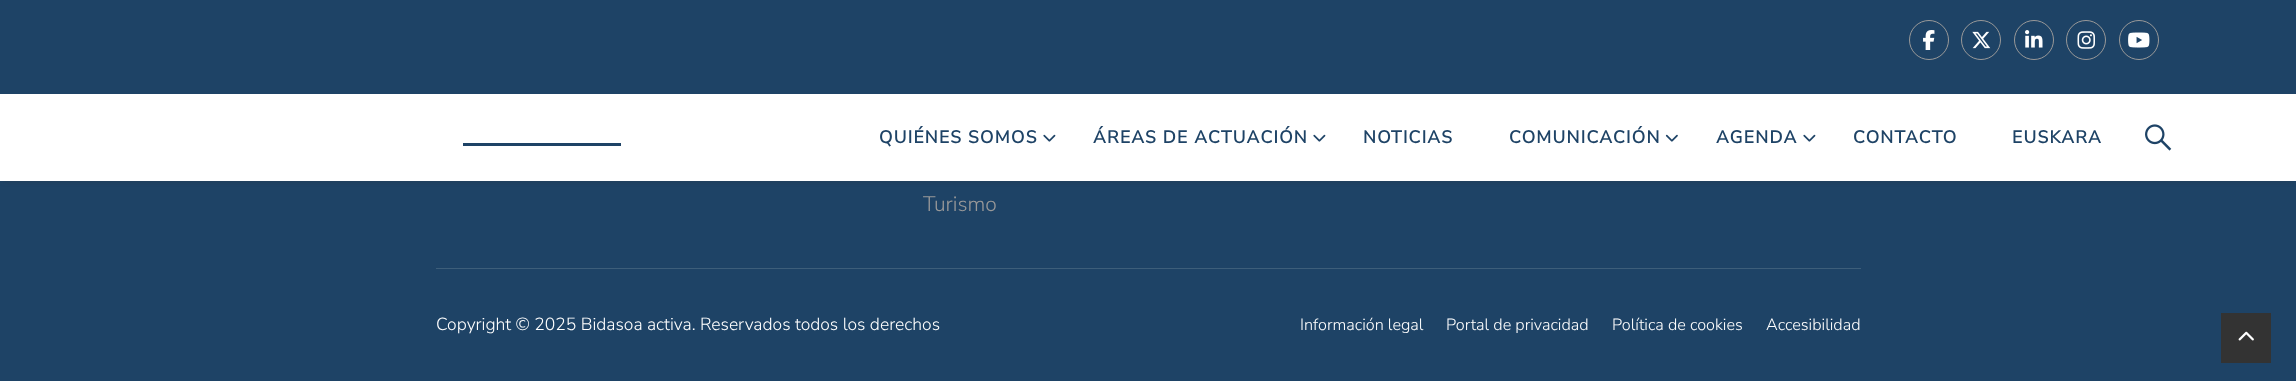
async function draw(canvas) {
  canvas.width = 2296
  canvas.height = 381
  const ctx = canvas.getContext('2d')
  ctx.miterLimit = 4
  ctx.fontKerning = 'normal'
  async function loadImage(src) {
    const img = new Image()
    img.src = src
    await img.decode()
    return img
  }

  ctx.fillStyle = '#1e4366'
  ctx.fillRect(0, 0, 2296, 381)
  ctx.fillStyle = '#2a2a2a66'
  ctx.filter = 'blur(3px)'
  ctx.beginPath()
  ctx.rect(3, 4, 2291, 176)
  ctx.fill()
  ctx.filter = 'none'
  ctx.fillStyle = '#fff'
  ctx.fillRect(0, 94, 2296, 87)
  ctx.fillStyle = '#1e4366'
  ctx.fillRect(0, 0, 2296, 94)
  ctx.beginPath()
  ctx.arc(1929, 40, 19.5, 0, 2 * Math.PI)
  ctx.strokeStyle = '#999'
  ctx.stroke()
  ctx.drawImage(await loadImage('image0.png'), 1923, 30, 12, 20)
  ctx.beginPath()
  ctx.arc(1981, 40, 19.5, 0, 2 * Math.PI)
  ctx.stroke()
  ctx.drawImage(await loadImage('image1.png'), 1972, 31, 19, 18)
  ctx.beginPath()
  ctx.arc(2034, 40, 19.5, 0, 2 * Math.PI)
  ctx.stroke()
  ctx.drawImage(await loadImage('image2.png'), 2025, 30, 18, 18)
  ctx.beginPath()
  ctx.arc(2086, 40, 19.5, 0, 2 * Math.PI)
  ctx.stroke()
  ctx.drawImage(await loadImage('image3.png'), 2077, 31, 18, 18)
  ctx.beginPath()
  ctx.arc(2139, 40, 19.5, 0, 2 * Math.PI)
  ctx.stroke()
  ctx.drawImage(await loadImage('image4.png'), 2128, 32, 22, 16)
  ctx.letterSpacing = '1.25px'
  ctx.font = 'bold 17.5px Nunito Sans'
  ctx.fillText('QUIÉNES SOMOS', 879, 143)
  ctx.drawImage(await loadImage('image5.png'), 1043, 134, 13, 8)
  ctx.fillText('ÁREAS DE ACTUACIÓN', 1093, 143)
  ctx.drawImage(await loadImage('image5.png'), 1313, 134, 13, 8)
  ctx.fillText('NOTICIAS', 1363, 143)
  ctx.fillText('COMUNICACIÓN', 1509, 143)
  ctx.drawImage(await loadImage('image6.png'), 1665, 134, 13, 8)
  ctx.fillText('AGENDA', 1716, 143)
  ctx.drawImage(await loadImage('image5.png'), 1803, 134, 13, 8)
  ctx.fillText('CONTACTO', 1853, 143)
  ctx.fillText('EUSKARA', 2012, 143)
  ctx.drawImage(await loadImage('image7.png'), 2145, 124, 27, 27)
  ctx.fillRect(463, 143, 158, 3)
  ctx.letterSpacing = '0px'
  ctx.font = '300 21px Nunito Sans'
  ctx.fillStyle = '#999'
  ctx.fillText('Turismo', 923, 211)
  ctx.fillStyle = '#3d5e7a'
  ctx.fillRect(436, 268, 1425, 1)
  ctx.font = '300 17.5px Nunito Sans'
  ctx.fillStyle = '#fff'
  ctx.fillText('Copyright © 2025 Bidasoa activa. Reservados todos los derechos', 436, 330)
  ctx.font = '300 16.25px Nunito Sans'
  ctx.fillText('Información legal', 1300, 330)
  ctx.fillText('Portal de privacidad', 1446, 330)
  ctx.fillText('Política de cookies', 1612, 330)
  ctx.fillText('Accesibilidad', 1766, 330)
  ctx.fillStyle = '#333'
  ctx.fillRect(2221, 313, 50, 50)
  ctx.drawImage(await loadImage('image8.png'), 2238, 331, 16, 10)
}

draw(document.querySelector('canvas'))
